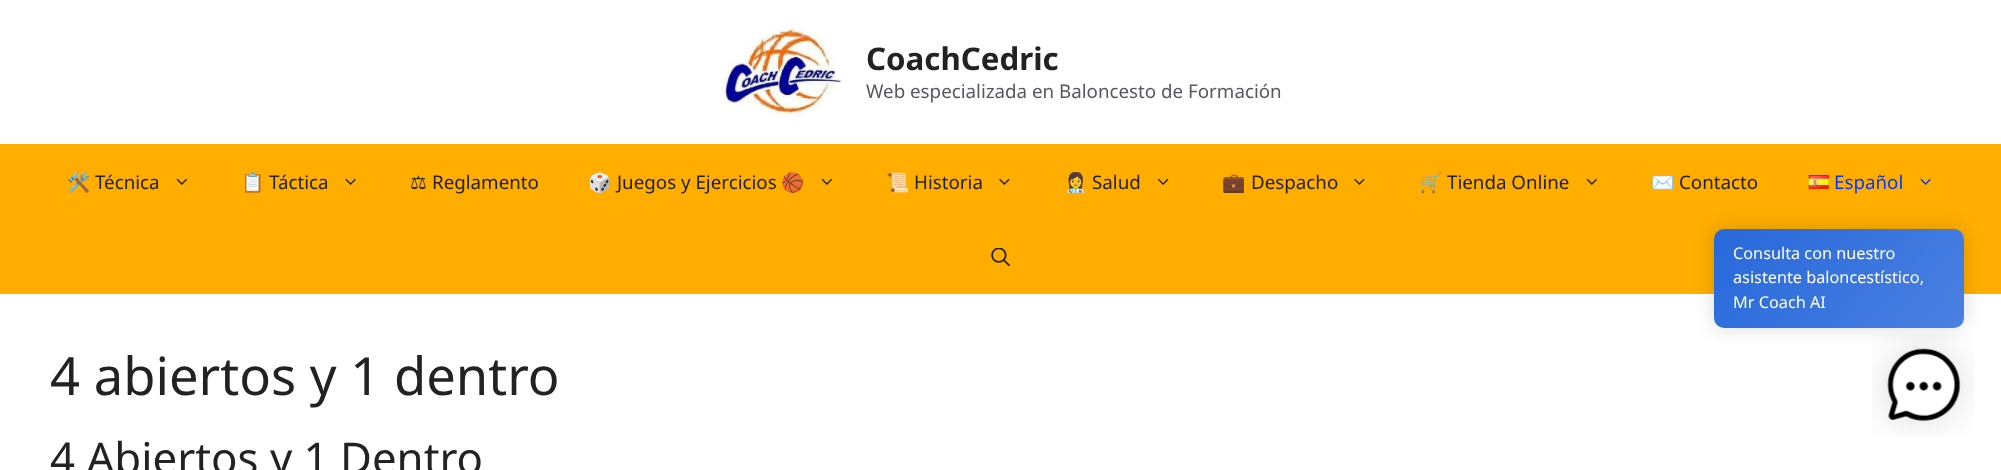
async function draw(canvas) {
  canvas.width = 2001
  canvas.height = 470
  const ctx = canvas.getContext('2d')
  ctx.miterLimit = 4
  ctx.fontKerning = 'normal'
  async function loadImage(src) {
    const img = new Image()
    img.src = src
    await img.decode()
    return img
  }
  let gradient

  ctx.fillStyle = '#ffae00'
  ctx.fillRect(0, 0, 2001, 470)
  ctx.fillStyle = '#fff'
  ctx.fillRect(0, 0, 2001, 144)
  ctx.drawImage(await loadImage('image0.png'), 720, 28, 124, 89)
  ctx.font = 'bold 31.25px Noto Sans'
  ctx.fillStyle = '#222'
  ctx.fillText('CoachCedric', 866, 70)
  ctx.font = '18.75px Noto Sans'
  ctx.fillStyle = '#575760'
  ctx.fillText('Web especializada en Baloncesto de Formación', 866, 98)
  ctx.font = '18.75px Noto Color Emoji'
  ctx.fillStyle = '#222'
  ctx.fillText('🛠️', 67, 189)
  ctx.font = '18.75px Noto Sans'
  ctx.fillText('Técnica', 95, 189)
  ctx.drawImage(await loadImage('image1.png'), 176, 178, 11, 7)
  ctx.font = '18.75px Noto Color Emoji'
  ctx.fillText('📋', 241, 189)
  ctx.font = '18.75px Noto Sans'
  ctx.fillText('Táctica', 269, 189)
  ctx.drawImage(await loadImage('image2.png'), 345, 178, 11, 7)
  ctx.font = '18.75px DejaVu Sans'
  ctx.fillText('⚖︎', 410, 189)
  ctx.font = '18.75px Noto Sans'
  ctx.fillText('Reglamento', 432, 189)
  ctx.font = '18.75px Noto Color Emoji'
  ctx.fillText('🎲', 588, 189)
  ctx.font = '18.75px Noto Sans'
  ctx.fillText('Juegos y Ejercicios', 617, 189)
  ctx.font = '18.75px Noto Color Emoji'
  ctx.fillText('🏀', 781, 189)
  ctx.drawImage(await loadImage('image1.png'), 821, 178, 11, 7)
  ctx.fillText('📜', 886, 189)
  ctx.font = '18.75px Noto Sans'
  ctx.fillText('Historia', 914, 189)
  ctx.drawImage(await loadImage('image3.png'), 999, 178, 11, 7)
  ctx.font = '18.75px Noto Color Emoji'
  ctx.fillText('👩‍⚕️', 1064, 189)
  ctx.font = '18.75px Noto Sans'
  ctx.fillText('Salud', 1092, 189)
  ctx.drawImage(await loadImage('image4.png'), 1158, 178, 11, 7)
  ctx.font = '18.75px Noto Color Emoji'
  ctx.fillText('💼', 1222, 189)
  ctx.font = '18.75px Noto Sans'
  ctx.fillText('Despacho', 1251, 189)
  ctx.drawImage(await loadImage('image3.png'), 1354, 178, 11, 7)
  ctx.font = '18.75px Noto Color Emoji'
  ctx.fillText('🛒', 1419, 189)
  ctx.font = '18.75px Noto Sans'
  ctx.fillText('Tienda Online', 1447, 189)
  ctx.drawImage(await loadImage('image1.png'), 1586, 178, 11, 7)
  ctx.font = '18.75px Noto Color Emoji'
  ctx.fillText('✉️', 1651, 189)
  ctx.font = '18.75px Noto Sans'
  ctx.fillText('Contacto', 1679, 189)
  ctx.drawImage(await loadImage('image5.png'), 1808, 175, 21, 14)
  ctx.fillStyle = '#0037ff'
  ctx.fillText('Español', 1834, 189)
  ctx.drawImage(await loadImage('image6.png'), 1920, 178, 11, 7)
  ctx.drawImage(await loadImage('image7.png'), 991, 248, 19, 18)
  ctx.fillStyle = '#fff'
  ctx.fillRect(0, 294, 2001, 176)
  ctx.drawImage(await loadImage('image8.png'), 1872, 334, 103, 102)
  ctx.fillStyle = '#00000026'
  ctx.filter = 'blur(9.5px)'
  ctx.beginPath()
  ctx.roundRect(1714, 229, 250, 99, 10)
  ctx.fill()
  ctx.filter = 'none'
  gradient = ctx.createLinearGradient(1741, 196, 1936, 360)
  gradient.addColorStop(0, '#2768db')
  gradient.addColorStop(1, '#4a80e1')
  ctx.fillStyle = gradient
  ctx.beginPath()
  ctx.roundRect(1714, 229, 250, 99, 10)
  ctx.fill()
  ctx.font = '16.25px Noto Sans'
  ctx.fillStyle = '#fff'
  ctx.fillText('Consulta con nuestro', 1733, 259)
  ctx.fillText('asistente baloncestístico,', 1733, 283)
  ctx.fillText('Mr Coach AI', 1733, 308)
  ctx.font = '52.5px Noto Sans'
  ctx.fillStyle = '#222'
  ctx.fillText('4 abiertos y 1 dentro', 50, 395)
  ctx.font = '43.75px Noto Sans'
  ctx.fillText('4 Abiertos y 1 Dentro', 50, 474)
}

draw(document.querySelector('canvas'))
